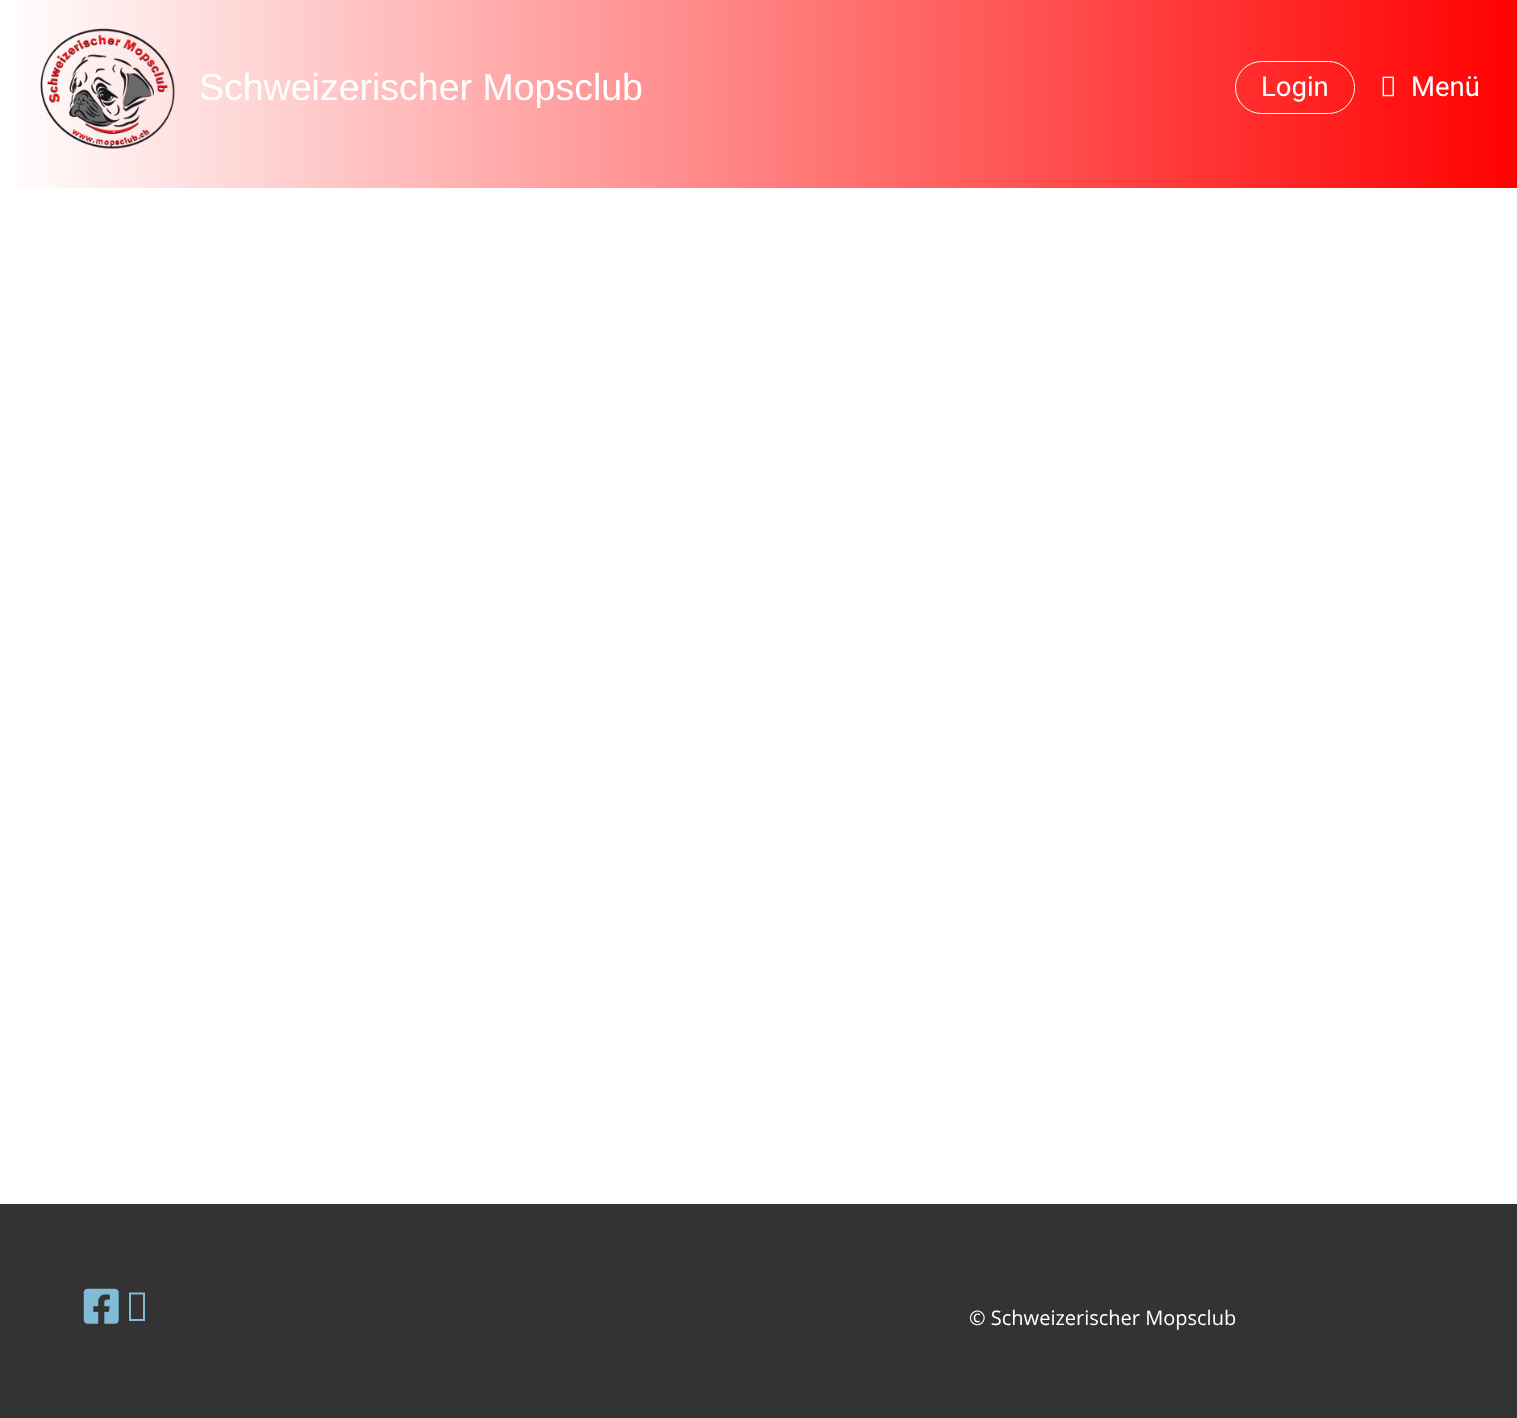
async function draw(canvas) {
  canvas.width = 1517
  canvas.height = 1418
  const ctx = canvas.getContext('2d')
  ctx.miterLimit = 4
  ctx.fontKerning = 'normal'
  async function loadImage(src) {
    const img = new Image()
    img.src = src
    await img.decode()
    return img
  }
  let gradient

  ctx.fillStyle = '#fff'
  ctx.fillRect(0, 0, 1517, 1418)
  gradient = ctx.createLinearGradient(0, 94, 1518, 94)
  gradient.addColorStop(0, '#fff')
  gradient.addColorStop(1, '#f00')
  ctx.fillStyle = gradient
  ctx.fillRect(15, 0, 1502, 188)
  ctx.drawImage(await loadImage('image0.png'), 40, 28, 135, 121)
  ctx.font = '37.5px Liberation Sans'
  ctx.fillStyle = '#fff'
  ctx.fillText('Schweizerischer Mopsclub', 199, 100)
  ctx.beginPath()
  ctx.roundRect(1235.5, 61.5, 119, 52, 26)
  ctx.strokeStyle = '#fff'
  ctx.stroke()
  ctx.font = '27.5px Roboto'
  ctx.fillText('Login', 1261, 96)
  ctx.drawImage(await loadImage('image1.png'), 1382, 76, 12, 21)
  ctx.fillText('Menü', 1411, 96)
  ctx.fillStyle = '#333'
  ctx.fillRect(0, 1204, 1517, 214)
  ctx.drawImage(await loadImage('image2.png'), 83, 1288, 36, 36)
  ctx.fillStyle = '#81bbd5'
  ctx.beginPath()
  ctx.moveTo(129, 1321)
  ctx.lineTo(129, 1292.5)
  ctx.lineTo(145, 1292.5)
  ctx.lineTo(145, 1321)
  ctx.closePath()
  ctx.moveTo(131, 1319)
  ctx.lineTo(143, 1319)
  ctx.lineTo(143, 1294.5)
  ctx.lineTo(131, 1294.5)
  ctx.closePath()
  ctx.fill()
  ctx.font = '20px Open Sans'
  ctx.fillStyle = '#fff'
  ctx.fillText('© Schweizerischer Mopsclub', 969, 1325)
}

draw(document.querySelector('canvas'))
